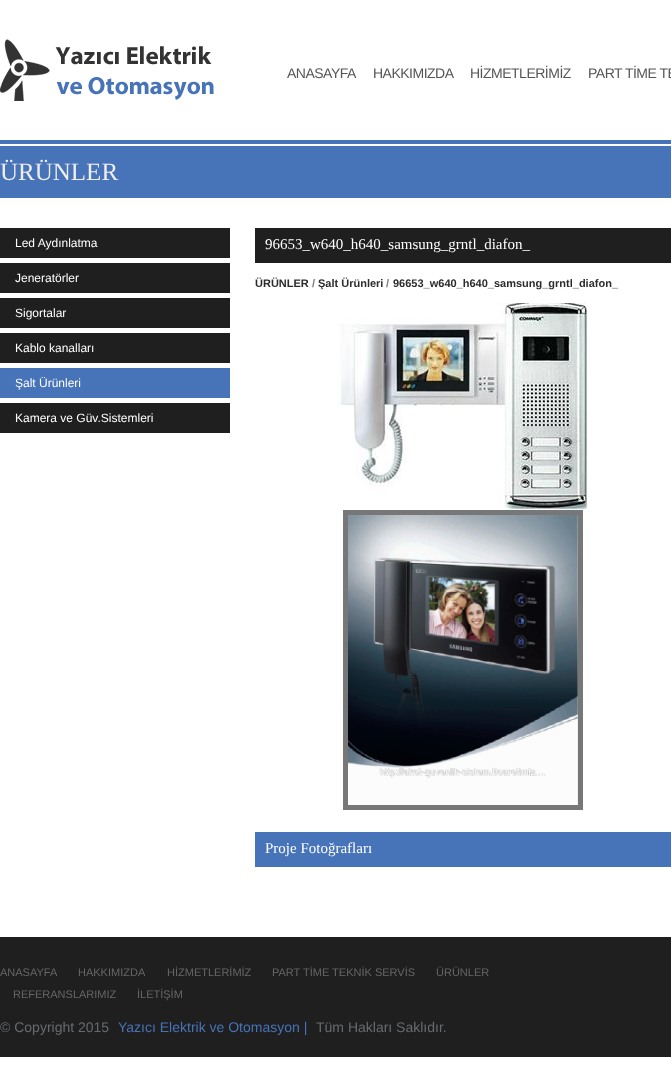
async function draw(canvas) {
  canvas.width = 671
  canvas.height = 1083
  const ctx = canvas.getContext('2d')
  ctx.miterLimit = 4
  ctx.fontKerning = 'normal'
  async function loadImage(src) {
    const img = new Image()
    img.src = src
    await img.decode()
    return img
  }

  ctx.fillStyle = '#fff'
  ctx.fillRect(0, 0, 671, 1083)
  ctx.fillStyle = '#4773b9'
  ctx.fillRect(0, 140, 671, 4)
  ctx.drawImage(await loadImage('image0.png'), 0, 39, 214, 62)
  ctx.letterSpacing = '-0.5px'
  ctx.font = '14px Liberation Sans'
  ctx.fillStyle = '#555'
  ctx.fillText('ANASAYFA', 287, 78)
  ctx.fillText('HAKKIMIZDA', 373, 78)
  ctx.fillText('HİZMETLERİMİZ', 470, 78)
  ctx.fillText('PART TİME TE', 588, 78)
  ctx.fillStyle = '#4773b9'
  ctx.fillRect(0, 146, 671, 52)
  ctx.letterSpacing = '0px'
  ctx.font = '25px Liberation Serif'
  ctx.fillStyle = '#eee'
  ctx.fillText('ÜRÜNLER', 0, 180)
  ctx.fillStyle = '#1f1f1f'
  ctx.fillRect(0, 228, 230, 30)
  ctx.font = '12px Liberation Sans'
  ctx.fillStyle = '#fff'
  ctx.fillText('Led Aydınlatma', 15, 247)
  ctx.fillStyle = '#1f1f1f'
  ctx.fillRect(0, 263, 230, 30)
  ctx.fillStyle = '#fff'
  ctx.fillText('Jeneratörler', 15, 282)
  ctx.fillStyle = '#1f1f1f'
  ctx.fillRect(0, 298, 230, 30)
  ctx.fillStyle = '#fff'
  ctx.fillText('Sigortalar', 15, 317)
  ctx.fillStyle = '#1f1f1f'
  ctx.fillRect(0, 333, 230, 30)
  ctx.fillStyle = '#fff'
  ctx.fillText('Kablo kanalları', 15, 352)
  ctx.fillStyle = '#4773b9'
  ctx.fillRect(0, 368, 230, 30)
  ctx.fillStyle = '#fff'
  ctx.fillText('Şalt Ürünleri', 15, 387)
  ctx.fillStyle = '#1f1f1f'
  ctx.fillRect(0, 403, 230, 30)
  ctx.fillStyle = '#fff'
  ctx.fillText('Kamera ve Güv.Sistemleri', 15, 422)
  ctx.fillStyle = '#1f1f1f'
  ctx.fillRect(255, 228, 416, 35)
  ctx.font = '15px Liberation Serif'
  ctx.fillStyle = '#fff'
  ctx.fillText('96653_w640_h640_samsung_grntl_diafon_', 265, 249)
  ctx.font = 'bold 11px Liberation Sans'
  ctx.fillStyle = '#2c2c2c'
  ctx.fillText('ÜRÜNLER', 255, 287)
  ctx.fillStyle = '#777'
  ctx.fillText('/', 312, 287)
  ctx.fillStyle = '#2c2c2c'
  ctx.fillText('Şalt Ürünleri', 318, 287)
  ctx.fillStyle = '#777'
  ctx.fillText('/', 386, 287)
  ctx.fillStyle = '#2c2c2c'
  ctx.fillText('96653_w640_h640_samsung_grntl_diafon_', 393, 287)
  ctx.drawImage(await loadImage('image1.png'), 338, 303, 250, 207)
  ctx.strokeStyle = '#777'
  ctx.lineWidth = 5
  ctx.strokeRect(345.5, 512.5, 235, 295)
  ctx.drawImage(await loadImage('image2.png'), 348, 515, 230, 290)
  ctx.fillStyle = '#4773b9'
  ctx.fillRect(255, 832, 416, 35)
  ctx.font = '15px Liberation Serif'
  ctx.fillStyle = '#fff'
  ctx.fillText('Proje Fotoğrafları', 265, 853)
  ctx.fillStyle = '#1f1f1f'
  ctx.fillRect(0, 937, 671, 120)
  ctx.font = '11px Liberation Sans'
  ctx.fillStyle = '#676767'
  ctx.fillText('ANASAYFA', 0, 976)
  ctx.fillText('HAKKIMIZDA', 78, 976)
  ctx.fillText('HİZMETLERİMİZ', 167, 976)
  ctx.fillText('PART TİME TEKNİK SERVİS', 272, 976)
  ctx.fillText('ÜRÜNLER', 436, 976)
  ctx.fillText('REFERANSLARIMIZ', 13, 998)
  ctx.fillText('İLETİŞİM', 137, 998)
  ctx.font = '14px Liberation Sans'
  ctx.fillStyle = '#676b6e'
  ctx.fillText('© Copyright 2015', 0, 1032)
  ctx.fillStyle = '#4773b9'
  ctx.fillText('Yazıcı Elektrik ve Otomasyon |', 118, 1032)
  ctx.fillStyle = '#676b6e'
  ctx.fillText('Tüm Hakları Saklıdır.', 316, 1032)
}

draw(document.querySelector('canvas'))
